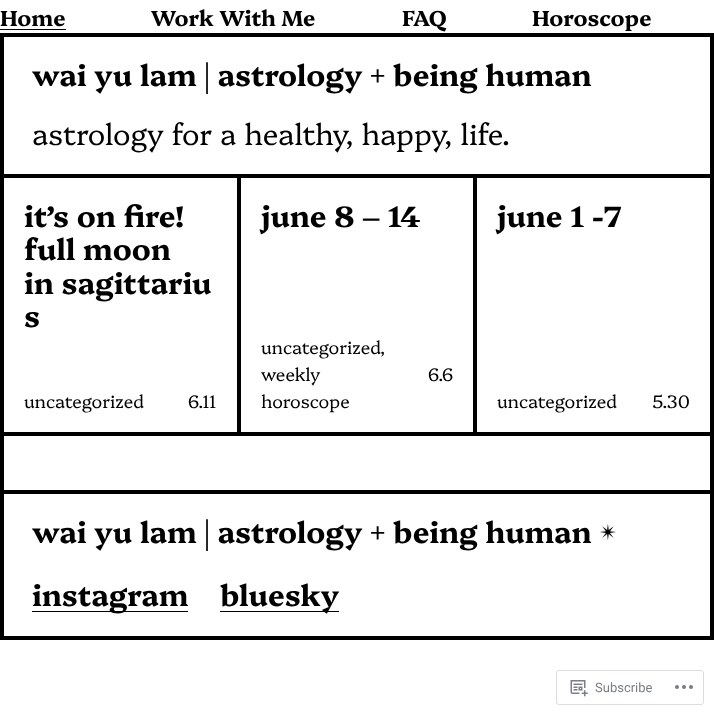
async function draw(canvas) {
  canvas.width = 714
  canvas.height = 715
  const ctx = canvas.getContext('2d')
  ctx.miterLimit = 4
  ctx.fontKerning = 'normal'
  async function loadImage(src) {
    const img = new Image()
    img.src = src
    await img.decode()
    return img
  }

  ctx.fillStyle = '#fff'
  ctx.fillRect(0, 0, 714, 715)
  ctx.font = 'bold 21.75px Platypi'
  ctx.fillStyle = '#000'
  ctx.fillText('Home', 0, 26)
  ctx.fillRect(0, 29, 66, 1)
  ctx.fillText('Work With Me', 151, 26)
  ctx.fillText('FAQ', 402, 26)
  ctx.fillText('Horoscope', 532, 26)
  ctx.strokeStyle = '#000'
  ctx.lineWidth = 4
  ctx.strokeRect(2, 35, 710, 141)
  ctx.font = 'bold 29.5px Platypi'
  ctx.fillText('wai yu lam | astrology + being human', 32, 86)
  ctx.font = '300 29.5px Platypi'
  ctx.fillText('astrology for a healthy, happy, life.', 32, 145)
  ctx.fillRect(712, 176, 2, 318)
  ctx.fillRect(0, 176, 2, 318)
  ctx.fillRect(2, 432, 710, 2)
  ctx.fillRect(710, 432, 2, 62)
  ctx.fillRect(2, 490, 710, 4)
  ctx.fillRect(2, 432, 2, 62)
  ctx.lineWidth = 2
  ctx.strokeRect(3, 177, 235, 258)
  ctx.font = 'bold 29.5px Platypi'
  ctx.fillText('it’s on fire!', 24, 227)
  ctx.fillText('full moon', 24, 260)
  ctx.fillText('in sagittariu', 24, 294)
  ctx.fillText('s', 24, 327)
  ctx.font = '300 18px Platypi'
  ctx.fillText('uncategorized', 24, 408)
  ctx.fillText('6.11', 188, 408)
  ctx.strokeRect(240, 177, 234, 258)
  ctx.font = 'bold 29.5px Platypi'
  ctx.fillText('june 8 – 14', 261, 227)
  ctx.font = '300 18px Platypi'
  ctx.fillText('uncategorized', 261, 354)
  ctx.fillText(',', 380, 354)
  ctx.fillText('weekly', 261, 381)
  ctx.fillText('horoscope', 261, 408)
  ctx.fillText('6.6', 428, 381)
  ctx.strokeRect(476, 177, 235, 258)
  ctx.font = 'bold 29.5px Platypi'
  ctx.fillText('june 1 -7', 497, 227)
  ctx.font = '300 18px Platypi'
  ctx.fillText('uncategorized', 497, 408)
  ctx.fillText('5.30', 652, 408)
  ctx.fillRect(710, 494, 4, 146)
  ctx.fillRect(0, 636, 714, 4)
  ctx.fillRect(0, 494, 4, 146)
  ctx.font = 'bold 29.5px Platypi'
  ctx.fillText('wai yu lam | astrology + being human', 32, 543)
  ctx.font = '21.75px DejaVu Sans'
  ctx.fillText('✴︎', 599, 540)
  ctx.fillRect(32, 611, 156, 1)
  ctx.font = 'bold 29.5px Platypi'
  ctx.fillText('instagram', 32, 606)
  ctx.fillRect(220, 611, 119, 1)
  ctx.fillText('bluesky', 220, 606)
  ctx.beginPath()
  ctx.roundRect(556.5, 670.5, 147, 34, 2.5)
  ctx.strokeStyle = '#dddddf'
  ctx.lineWidth = 1
  ctx.stroke()
  ctx.drawImage(await loadImage('image0.png'), 570, 680, 18, 17)
  ctx.font = '13px Roboto'
  ctx.fillStyle = '#7b7f85'
  ctx.fillText('Subscribe', 595, 692)
  ctx.drawImage(await loadImage('image1.png'), 675, 685, 18, 4)
}

draw(document.querySelector('canvas'))
